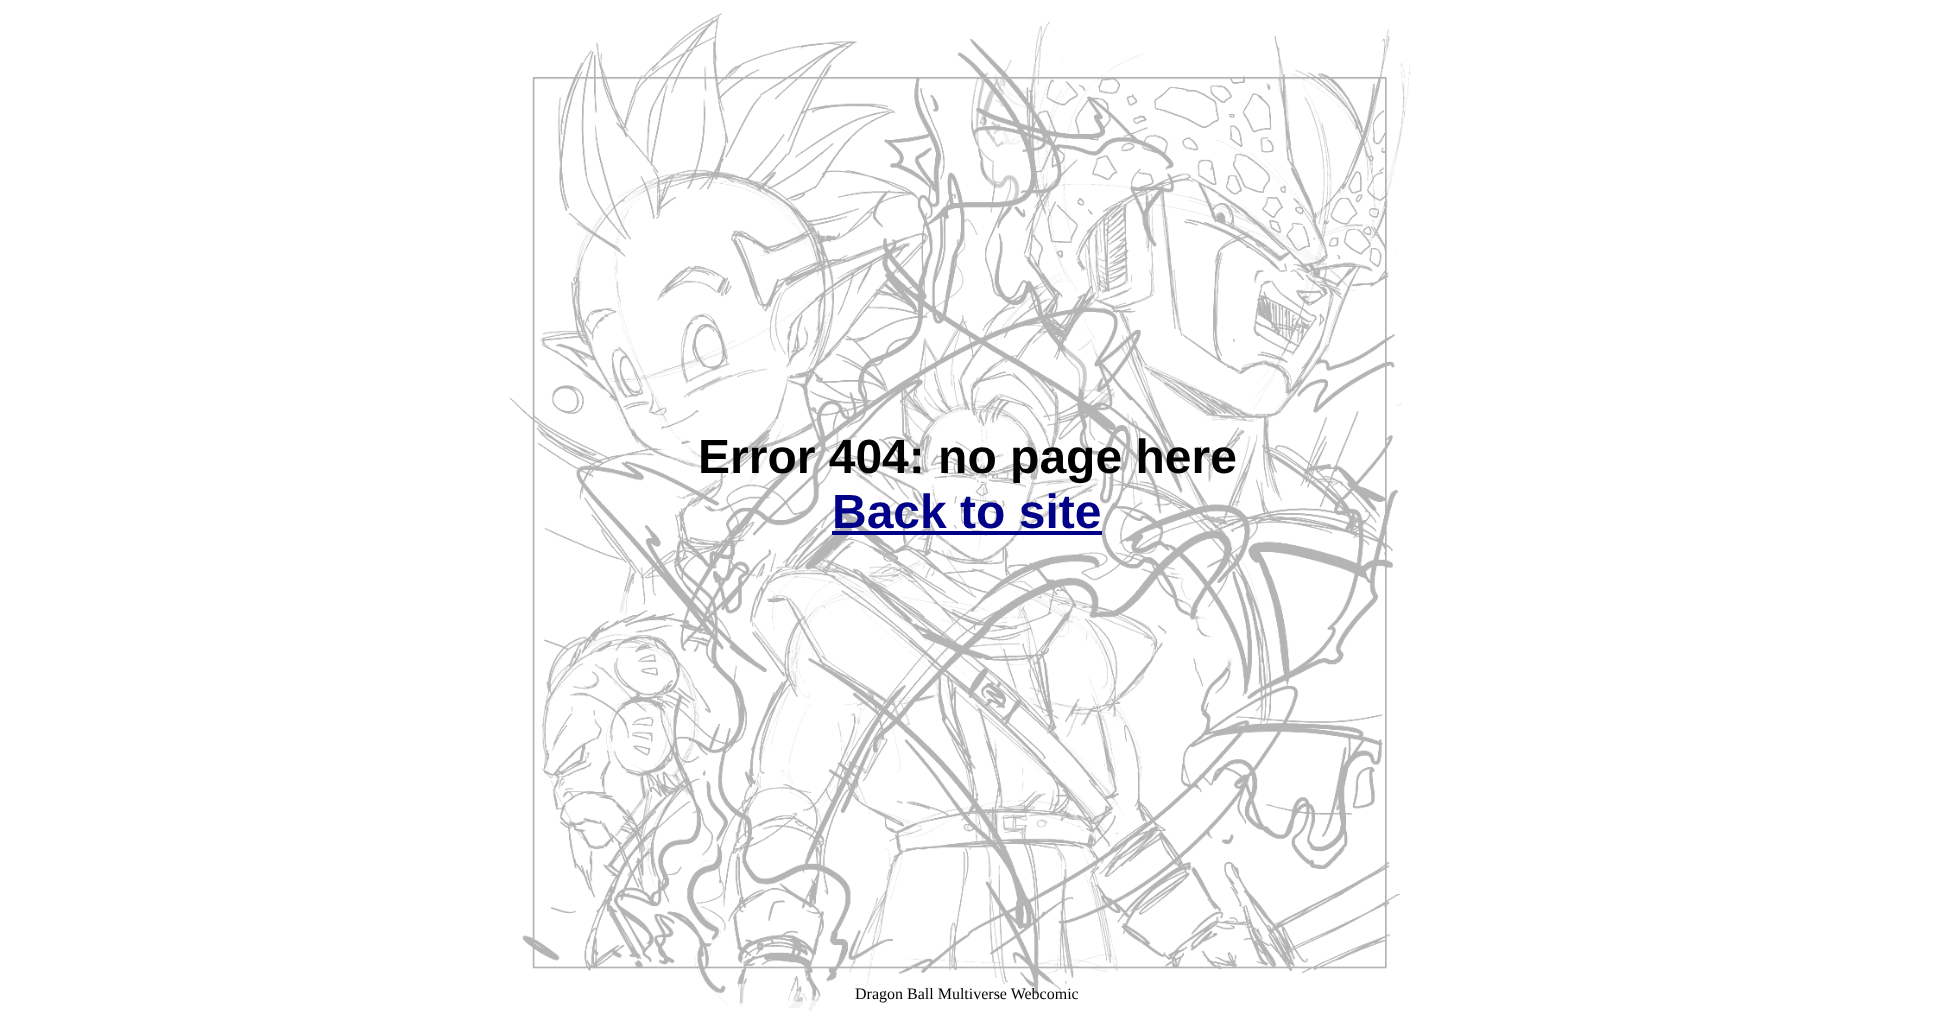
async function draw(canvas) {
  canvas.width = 1934
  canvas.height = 1021
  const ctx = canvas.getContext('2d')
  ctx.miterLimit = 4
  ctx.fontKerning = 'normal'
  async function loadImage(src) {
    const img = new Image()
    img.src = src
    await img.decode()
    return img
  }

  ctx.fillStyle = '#fff'
  ctx.fillRect(0, 0, 1934, 1021)
  ctx.drawImage(await loadImage('image0.png'), 509, 13, 901, 999)
  ctx.font = 'bold 48px Liberation Sans'
  ctx.fillStyle = '#000'
  ctx.fillText('Error 404: no page here', 698, 473)
  ctx.fillStyle = '#008'
  ctx.fillText('Back to site', 832, 528)
  ctx.fillRect(832, 531, 270, 4)
  ctx.font = '16px Liberation Serif'
  ctx.fillStyle = '#000'
  ctx.fillText('Dragon Ball Multiverse Webcomic', 855, 999)
}

draw(document.querySelector('canvas'))
